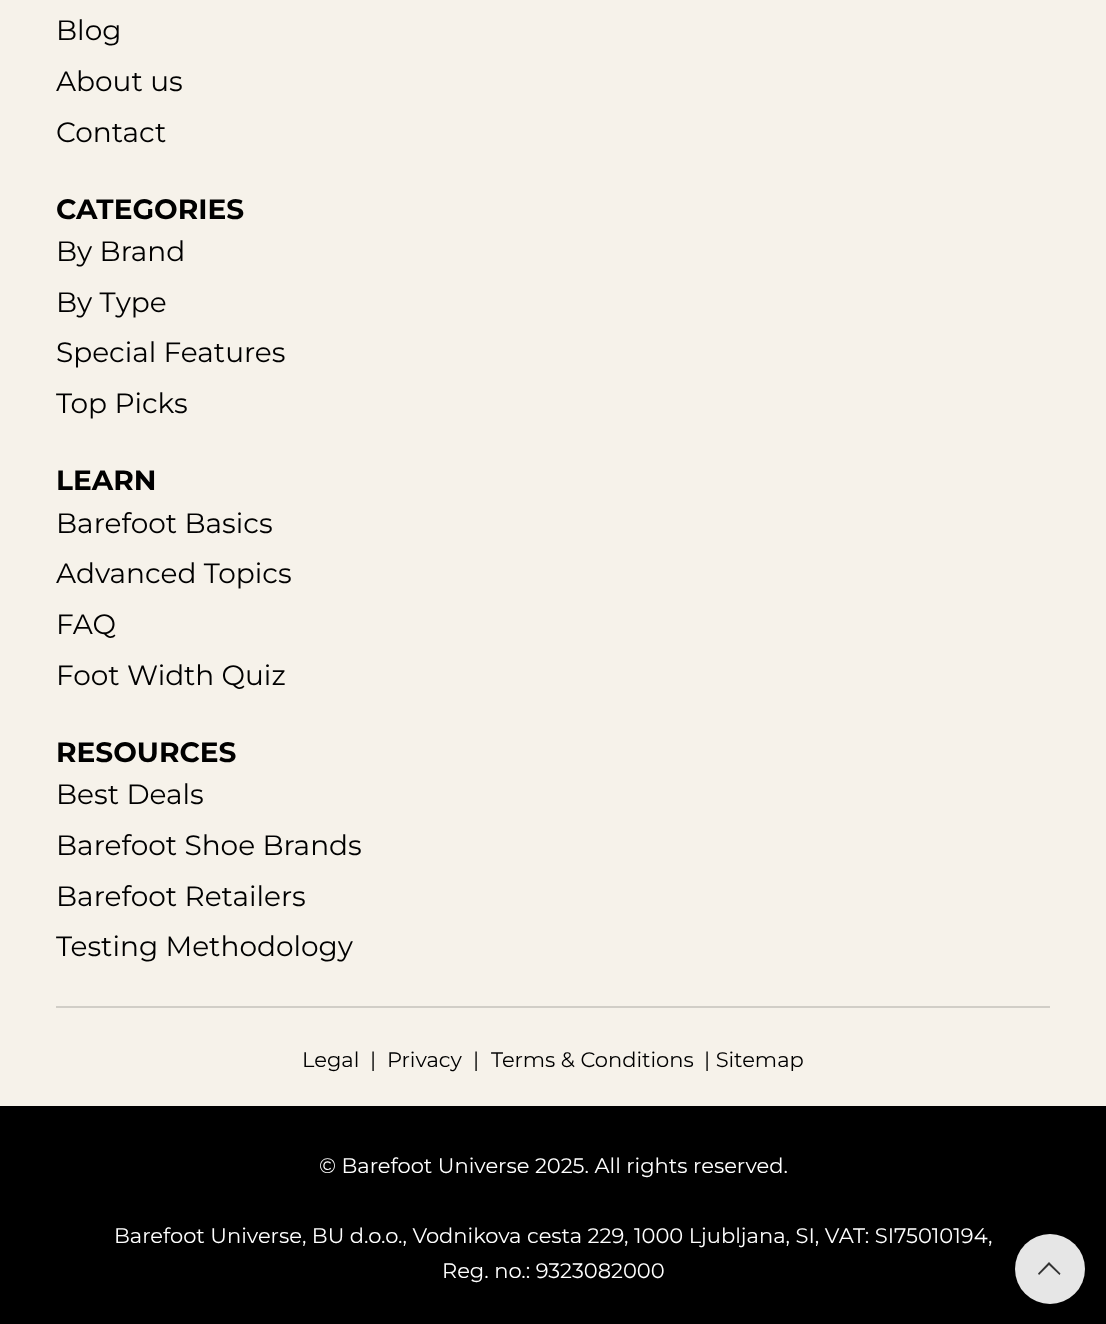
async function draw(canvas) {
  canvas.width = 1106
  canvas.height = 1324
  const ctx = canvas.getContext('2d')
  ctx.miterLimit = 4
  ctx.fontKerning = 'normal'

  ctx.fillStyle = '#f6f2ea'
  ctx.fillRect(0, 0, 1106, 1324)
  ctx.font = '28px Montserrat'
  ctx.fillStyle = '#000'
  ctx.fillText('Blog', 56, 40)
  ctx.fillText('About us', 56, 91)
  ctx.fillText('Contact', 56, 142)
  ctx.font = 'bold 28px Montserrat'
  ctx.fillText('CATEGORIES', 56, 219)
  ctx.font = '28px Montserrat'
  ctx.fillText('By Brand', 56, 261)
  ctx.fillText('By Type', 56, 312)
  ctx.fillText('Special Features', 56, 362)
  ctx.fillText('Top Picks', 56, 413)
  ctx.font = 'bold 28px Montserrat'
  ctx.fillText('LEARN', 56, 490)
  ctx.font = '28px Montserrat'
  ctx.fillText('Barefoot Basics', 56, 533)
  ctx.fillText('Advanced Topics', 56, 583)
  ctx.fillText('FAQ', 56, 634)
  ctx.fillText('Foot Width Quiz', 56, 685)
  ctx.font = 'bold 28px Montserrat'
  ctx.fillText('RESOURCES', 56, 762)
  ctx.font = '28px Montserrat'
  ctx.fillText('Best Deals', 56, 804)
  ctx.fillText('Barefoot Shoe Brands', 56, 855)
  ctx.fillText('Barefoot Retailers', 56, 906)
  ctx.fillText('Testing Methodology', 56, 956)
  ctx.fillStyle = '#d1cec7'
  ctx.fillRect(56, 1006, 994, 2)
  ctx.font = '21px Montserrat'
  ctx.fillStyle = '#000'
  ctx.fillText('Legal', 302, 1067)
  ctx.fillText('|', 370, 1067)
  ctx.fillText('Privacy', 387, 1067)
  ctx.fillText('|', 473, 1067)
  ctx.fillText('Terms & Conditions', 491, 1067)
  ctx.fillText('| Sitemap', 704, 1067)
  ctx.fillRect(0, 1106, 1106, 218)
  ctx.fillStyle = '#fff'
  ctx.fillText('© Barefoot Universe 2025. All rights reserved.', 319, 1173)
  ctx.fillText('Barefoot Universe, BU d.o.o., Vodnikova cesta 229, 1000 Ljubljana, SI, VAT: SI75010194,', 114, 1243)
  ctx.fillText('Reg. no.: 9323082000', 442, 1278)
  ctx.fillStyle = '#e6e6e6'
  ctx.beginPath()
  ctx.arc(1050, 1269, 35, 0, 2 * Math.PI)
  ctx.fill()
  ctx.fillStyle = '#333'
  ctx.beginPath()
  ctx.moveTo(1059.5, 1275)
  ctx.lineTo(1060.5, 1273.5)
  ctx.lineTo(1049, 1262)
  ctx.lineTo(1038, 1273.5)
  ctx.lineTo(1039, 1275)
  ctx.lineTo(1049, 1265)
  ctx.closePath()
  ctx.fill()
}

draw(document.querySelector('canvas'))
